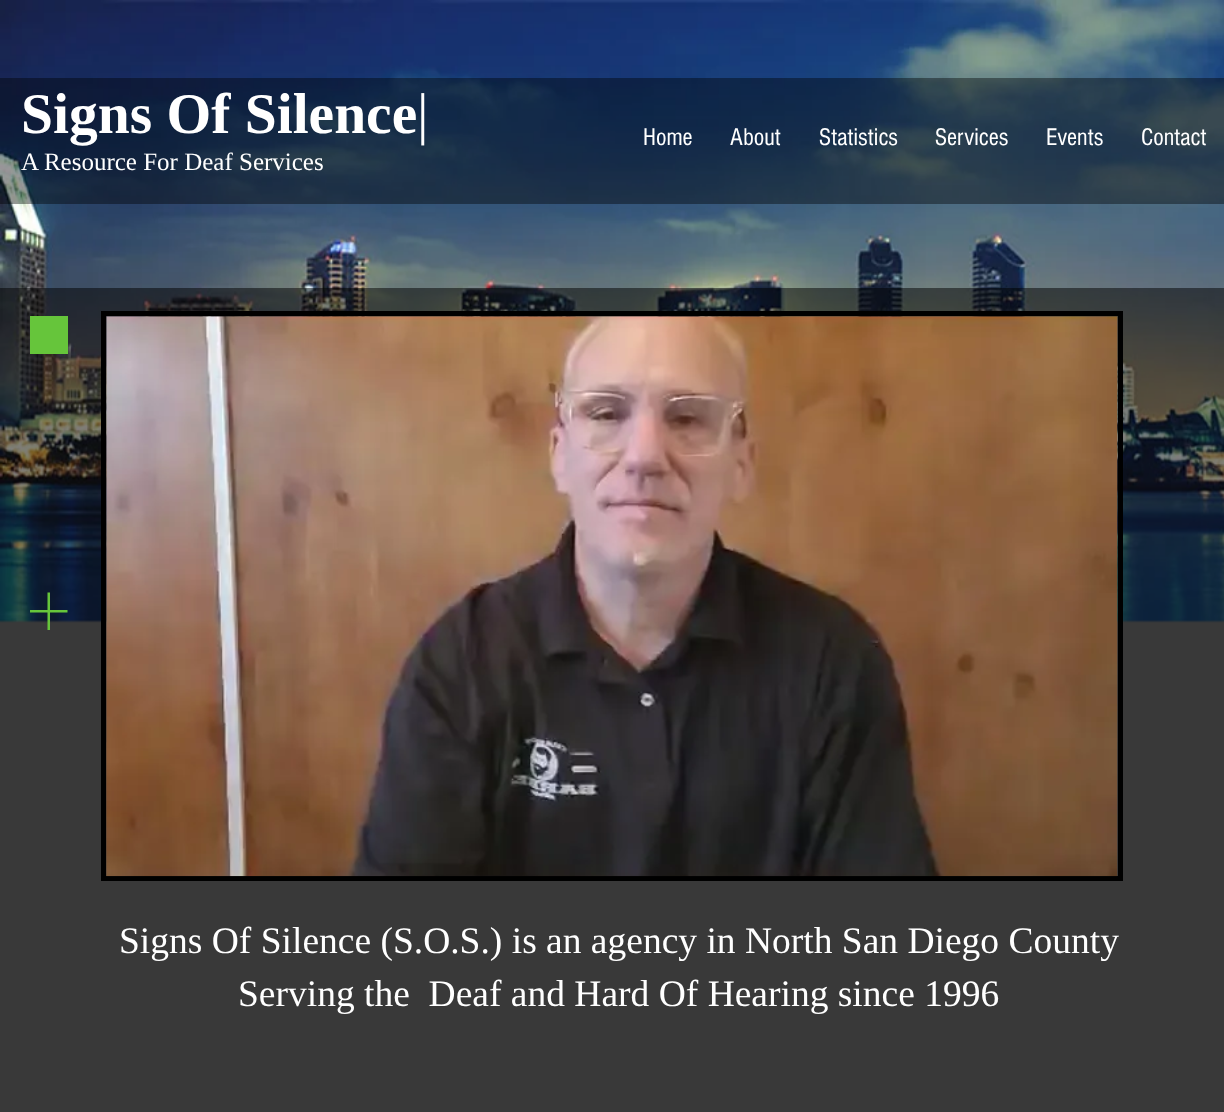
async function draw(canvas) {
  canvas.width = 1224
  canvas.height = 1112
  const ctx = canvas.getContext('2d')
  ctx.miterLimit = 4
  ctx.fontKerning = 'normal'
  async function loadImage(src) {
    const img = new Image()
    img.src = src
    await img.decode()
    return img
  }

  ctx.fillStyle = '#727272'
  ctx.fillRect(0, 0, 1224, 1112)
  ctx.drawImage(await loadImage('image0.png'), 0, 0, 1224, 623)
  ctx.fillStyle = '#00000066'
  ctx.fillRect(0, 78, 1224, 126)
  ctx.font = 'bold 57.5px Liberation Serif'
  ctx.fillStyle = '#fff'
  ctx.fillText('Signs Of Silence', 21, 133)
  ctx.font = '57.5px Liberation Serif'
  ctx.fillText('|', 417, 133)
  ctx.font = '25px Liberation Serif'
  ctx.fillText('A Resource For Deaf Services', 21, 170)
  ctx.font = '25px "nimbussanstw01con"'
  ctx.fillText('Home', 643, 145)
  ctx.fillText('About', 730, 145)
  ctx.fillText('Statistics', 819, 145)
  ctx.fillText('Services', 935, 145)
  ctx.fillText('Events', 1046, 145)
  ctx.fillText('Contact', 1141, 145)
  ctx.fillStyle = '#00000080'
  ctx.fillRect(0, 288, 1224, 824)
  ctx.fillStyle = '#66c53b'
  ctx.fillRect(30, 316, 38, 38)
  ctx.strokeStyle = '#000'
  ctx.lineWidth = 5
  ctx.strokeRect(103.5, 313.5, 1017, 565)
  ctx.drawImage(await loadImage('image1.png'), 106, 316, 1012, 561)
  ctx.beginPath()
  ctx.moveTo(67.5, 610)
  ctx.lineTo(50, 610)
  ctx.lineTo(50, 592.5)
  ctx.lineTo(47.5, 592.5)
  ctx.lineTo(47.5, 610)
  ctx.lineTo(30, 610)
  ctx.lineTo(30, 612.5)
  ctx.lineTo(47.5, 612.5)
  ctx.lineTo(47.5, 630)
  ctx.lineTo(50, 630)
  ctx.lineTo(50, 612.5)
  ctx.lineTo(67.5, 612.5)
  ctx.closePath()
  ctx.fill()
  ctx.font = '37.5px Liberation Serif'
  ctx.fillStyle = '#fff'
  ctx.fillText('Signs Of Silence (S.O.S.) is an agency in North San Diego County', 119, 953)
  ctx.fillText('Serving the  Deaf and Hard Of Hearing since 1996', 238, 1006)
}

draw(document.querySelector('canvas'))
